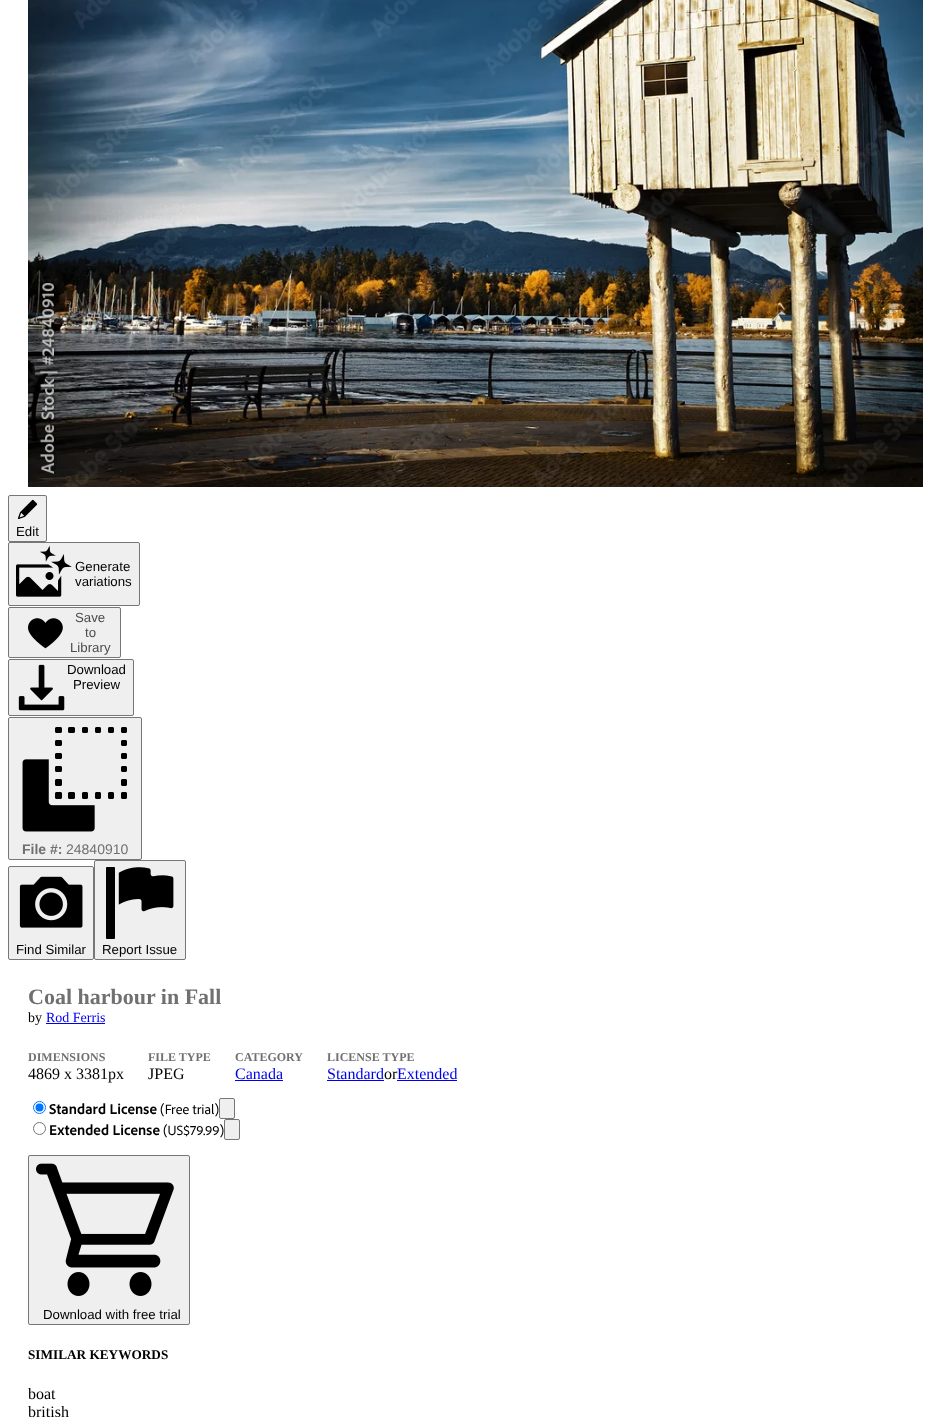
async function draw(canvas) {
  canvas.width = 951
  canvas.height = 1425
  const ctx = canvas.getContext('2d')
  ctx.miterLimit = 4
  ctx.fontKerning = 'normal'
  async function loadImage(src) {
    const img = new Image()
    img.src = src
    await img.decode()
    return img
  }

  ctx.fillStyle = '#fff'
  ctx.fillRect(0, 0, 951, 1425)
  ctx.drawImage(await loadImage('image0.png'), 28, 0, 895, 487)
  ctx.fillStyle = '#efefef'
  ctx.beginPath()
  ctx.roundRect(8.5, 495.5, 38, 46, 1.5)
  ctx.fill()
  ctx.strokeStyle = '#767676'
  ctx.stroke()
  ctx.drawImage(await loadImage('image1.png'), 17, 499, 21, 20)
  ctx.font = '13.25px Liberation Sans'
  ctx.fillStyle = '#000'
  ctx.fillText('Edit', 16, 536)
  ctx.fillStyle = '#efefef'
  ctx.beginPath()
  ctx.roundRect(8.5, 542.5, 131, 63, 1.5)
  ctx.fill()
  ctx.stroke()
  ctx.drawImage(await loadImage('image2.png'), 16, 545, 56, 52)
  ctx.fillStyle = '#000'
  ctx.fillText('Generate', 75, 571)
  ctx.fillText('variations', 75, 586)
  ctx.fillStyle = '#efefef'
  ctx.beginPath()
  ctx.roundRect(8.5, 607.5, 112, 50, 1.5)
  ctx.fill()
  ctx.stroke()
  ctx.drawImage(await loadImage('image3.png'), 28, 618, 35, 31)
  ctx.fillStyle = '#4b4b4b'
  ctx.fillText('Save', 75, 622)
  ctx.fillText('to', 85, 637)
  ctx.fillText('Library', 70, 652)
  ctx.fillStyle = '#efefef'
  ctx.beginPath()
  ctx.roundRect(8.5, 659.5, 125, 56, 1.5)
  ctx.fill()
  ctx.stroke()
  ctx.drawImage(await loadImage('image4.png'), 18, 664, 47, 47)
  ctx.fillStyle = '#000'
  ctx.fillText('Download', 67, 674)
  ctx.fillText('Preview', 73, 689)
  ctx.fillStyle = '#efefef'
  ctx.beginPath()
  ctx.roundRect(8.5, 717.5, 133, 142, 1.5)
  ctx.fill()
  ctx.stroke()
  ctx.drawImage(await loadImage('image5.png'), 22, 727, 105, 105)
  ctx.font = 'bold 14px Liberation Sans'
  ctx.fillStyle = '#707070'
  ctx.fillText('File #:', 22, 854)
  ctx.font = '14px Liberation Sans'
  ctx.fillText('24840910', 66, 854)
  ctx.fillStyle = '#efefef'
  ctx.beginPath()
  ctx.roundRect(8.5, 866.5, 85, 93, 1.5)
  ctx.fill()
  ctx.stroke()
  ctx.drawImage(await loadImage('image6.png'), 19, 876, 64, 52)
  ctx.font = '13.25px Liberation Sans'
  ctx.fillStyle = '#000'
  ctx.fillText('Find Similar', 16, 954)
  ctx.fillStyle = '#efefef'
  ctx.beginPath()
  ctx.roundRect(94.5, 860.5, 91, 99, 1.5)
  ctx.fill()
  ctx.stroke()
  ctx.drawImage(await loadImage('image7.png'), 106, 867, 68, 72)
  ctx.fillStyle = '#000'
  ctx.fillText('Report Issue', 102, 954)
  ctx.font = 'bold 22px Liberation Serif'
  ctx.fillStyle = '#707070'
  ctx.fillText('Coal harbour in Fall', 28, 1004)
  ctx.font = '14px Liberation Serif'
  ctx.fillStyle = '#000'
  ctx.fillText('by', 28, 1022)
  ctx.fillStyle = '#00e'
  ctx.fillText('Rod Ferris', 46, 1022)
  ctx.fillRect(46, 1023, 59, 1)
  ctx.font = 'bold 12px Liberation Serif'
  ctx.fillStyle = '#707070'
  ctx.fillText('DIMENSIONS', 28, 1061)
  ctx.font = '16px Liberation Serif'
  ctx.fillStyle = '#000'
  ctx.fillText('4869 x 3381px', 28, 1079)
  ctx.font = 'bold 12px Liberation Serif'
  ctx.fillStyle = '#707070'
  ctx.fillText('FILE TYPE', 148, 1061)
  ctx.font = '16px Liberation Serif'
  ctx.fillStyle = '#000'
  ctx.fillText('JPEG', 148, 1079)
  ctx.font = 'bold 12px Liberation Serif'
  ctx.fillStyle = '#707070'
  ctx.fillText('CATEGORY', 235, 1061)
  ctx.font = '16px Liberation Serif'
  ctx.fillStyle = '#00e'
  ctx.fillText('Canada', 235, 1079)
  ctx.fillRect(235, 1080, 48, 1)
  ctx.font = 'bold 12px Liberation Serif'
  ctx.fillStyle = '#707070'
  ctx.fillText('LICENSE TYPE', 327, 1061)
  ctx.font = '16px Liberation Serif'
  ctx.fillStyle = '#00e'
  ctx.fillText('Standard', 327, 1079)
  ctx.fillStyle = '#000'
  ctx.fillText('or', 384, 1079)
  ctx.fillStyle = '#00e'
  ctx.fillRect(327, 1080, 57, 1)
  ctx.fillRect(397, 1080, 60, 1)
  ctx.fillText('Extended', 397, 1079)
  ctx.beginPath()
  ctx.arc(39.5, 1107.5, 6, 0, 2 * Math.PI)
  ctx.strokeStyle = '#0075ff'
  ctx.stroke()
  ctx.fillStyle = '#0075ff'
  ctx.beginPath()
  ctx.arc(39.5, 1107.5, 4, 0, 2 * Math.PI)
  ctx.fill()
  ctx.font = 'bold 15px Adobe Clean'
  ctx.fillStyle = '#000'
  ctx.fillText('Standard License', 49, 1114)
  ctx.font = '14px Adobe Clean'
  ctx.fillText('(Free trial)', 160, 1114)
  ctx.fillStyle = '#efefef'
  ctx.beginPath()
  ctx.roundRect(219.5, 1098.5, 15, 20, 1.5)
  ctx.fill()
  ctx.strokeStyle = '#767676'
  ctx.stroke()
  ctx.beginPath()
  ctx.arc(39.5, 1128.5, 6, 0, 2 * Math.PI)
  ctx.stroke()
  ctx.font = 'bold 15px Adobe Clean'
  ctx.fillStyle = '#000'
  ctx.fillText('Extended License', 49, 1135)
  ctx.font = '14px Adobe Clean'
  ctx.fillText('(US$79.99)', 163, 1135)
  ctx.fillStyle = '#efefef'
  ctx.beginPath()
  ctx.roundRect(224.5, 1119.5, 15, 20, 1.5)
  ctx.fill()
  ctx.stroke()
  ctx.beginPath()
  ctx.roundRect(28.5, 1155.5, 161, 169, 1.5)
  ctx.fill()
  ctx.stroke()
  ctx.drawImage(await loadImage('image8.png'), 36, 1163, 138, 133)
  ctx.font = '13.25px Liberation Sans'
  ctx.fillStyle = '#000'
  ctx.fillText('Download with free trial', 43, 1319)
  ctx.font = 'bold 13.25px Liberation Serif'
  ctx.fillText('SIMILAR KEYWORDS', 28, 1359)
  ctx.font = '16px Liberation Serif'
  ctx.fillText('boat', 28, 1399)
  ctx.save()
  ctx.beginPath()
  ctx.rect(28, 1385, 895, 32)
  ctx.clip()
  ctx.fillText('british', 28, 1417)
  ctx.restore()
}

draw(document.querySelector('canvas'))
